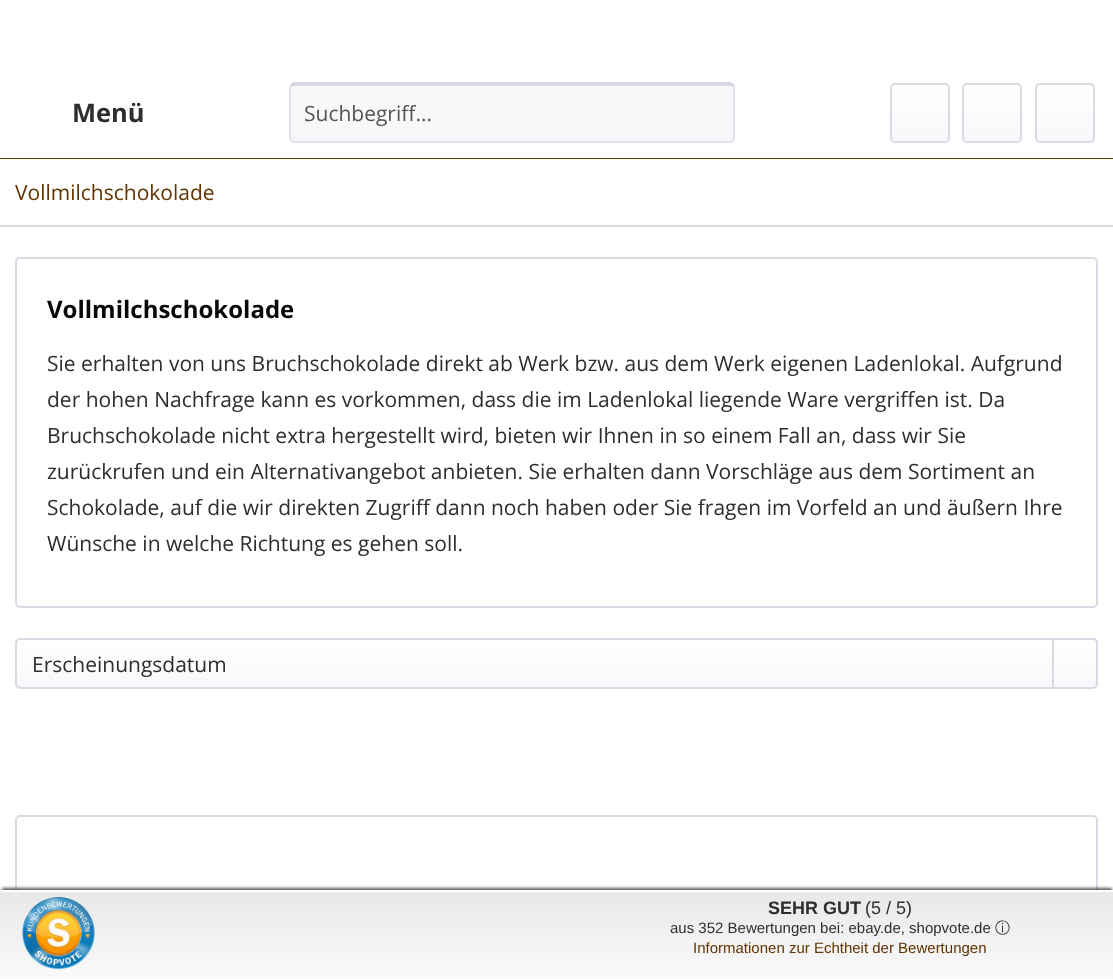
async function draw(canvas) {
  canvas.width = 1113
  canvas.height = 979
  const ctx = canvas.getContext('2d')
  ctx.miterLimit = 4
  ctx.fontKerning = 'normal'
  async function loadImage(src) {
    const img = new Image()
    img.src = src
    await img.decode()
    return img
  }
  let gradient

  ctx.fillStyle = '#fff'
  ctx.fillRect(0, 0, 1113, 979)
  ctx.fillStyle = '#613400'
  ctx.fillRect(0, 158, 1113, 1)
  ctx.font = 'bold 25.5px Open Sans'
  ctx.fillStyle = '#2e2e2e'
  ctx.fillText('Menü', 72, 122)
  ctx.fillStyle = '#f8f8fa'
  ctx.beginPath()
  ctx.roundRect(290, 83, 445, 60, 5)
  ctx.fill()
  ctx.fillStyle = '#dadae5'
  ctx.beginPath()
  ctx.moveTo(294, 86)
  ctx.lineTo(730, 86)
  ctx.bezierCurveTo(732, 86, 734, 87, 734, 88)
  ctx.bezierCurveTo(734, 86, 733, 84, 731, 84)
  ctx.lineTo(293, 84)
  ctx.lineTo(291, 86)
  ctx.lineTo(291, 88)
  ctx.bezierCurveTo(291, 87, 292, 86, 294, 86)
  ctx.closePath()
  ctx.fill()
  ctx.beginPath()
  ctx.moveTo(291.5, 84.5)
  ctx.lineTo(294, 83)
  ctx.lineTo(730.5, 83)
  ctx.lineTo(733, 84.5)
  ctx.strokeStyle = '#cbcbdb'
  ctx.lineWidth = 1.5
  ctx.stroke()
  ctx.beginPath()
  ctx.moveTo(733, 84.5)
  ctx.bezierCurveTo(734, 85, 734, 86, 734, 87)
  ctx.lineTo(734, 138)
  ctx.bezierCurveTo(734, 139, 734, 140, 733, 140.5)
  ctx.bezierCurveTo(732.5, 141.5, 731.5, 142, 730.5, 142)
  ctx.lineTo(294, 142)
  ctx.bezierCurveTo(293, 142, 292, 141.5, 291.5, 140.5)
  ctx.bezierCurveTo(290.5, 140, 290, 139, 290, 138)
  ctx.lineTo(290, 87)
  ctx.bezierCurveTo(290, 86, 290.5, 85, 291.5, 84.5)
  ctx.strokeStyle = '#dadae5'
  ctx.stroke()
  ctx.font = '21px Open Sans'
  ctx.fillStyle = '#545454'
  ctx.fillText('Suchbegriff...', 304, 121)
  gradient = ctx.createLinearGradient(920, 84, 920, 141)
  gradient.addColorStop(0, '#fff')
  gradient.addColorStop(1, '#f8f8fa')
  ctx.fillStyle = gradient
  ctx.beginPath()
  ctx.roundRect(891, 84, 57, 57, 3)
  ctx.fill()
  ctx.beginPath()
  ctx.roundRect(891, 84, 58, 58, 4)
  ctx.lineWidth = 2
  ctx.stroke()
  gradient = ctx.createLinearGradient(992, 84, 992, 141)
  gradient.addColorStop(0, '#fff')
  gradient.addColorStop(1, '#f8f8fa')
  ctx.fillStyle = gradient
  ctx.beginPath()
  ctx.roundRect(963, 84, 57, 57, 3)
  ctx.fill()
  ctx.beginPath()
  ctx.roundRect(963, 84, 58, 58, 4)
  ctx.stroke()
  gradient = ctx.createLinearGradient(1065, 84, 1065, 141)
  gradient.addColorStop(0, '#fff')
  gradient.addColorStop(1, '#f8f8fa')
  ctx.fillStyle = gradient
  ctx.beginPath()
  ctx.roundRect(1037, 84, 57, 57, 3)
  ctx.fill()
  ctx.beginPath()
  ctx.roundRect(1036, 84, 58, 58, 4)
  ctx.stroke()
  ctx.fillStyle = '#dadae5'
  ctx.fillRect(0, 225, 1113, 2)
  ctx.fillStyle = '#613400'
  ctx.fillText('Vollmilchschokolade', 15, 200)
  ctx.beginPath()
  ctx.roundRect(16, 258, 1081, 349, 4)
  ctx.stroke()
  ctx.font = 'bold 24px Open Sans'
  ctx.fillStyle = '#080808'
  ctx.fillText('Vollmilchschokolade', 47, 318)
  ctx.font = '21px Open Sans'
  ctx.fillStyle = '#2e2e2e'
  ctx.fillText('Sie erhalten von uns Bruchschokolade direkt ab Werk bzw. aus dem Werk eigenen Ladenlokal. Aufgrund', 47, 371)
  ctx.fillText('der hohen Nachfrage kann es vorkommen, dass die im Ladenlokal liegende Ware vergriffen ist. Da', 47, 407)
  ctx.fillText('Bruchschokolade nicht extra hergestellt wird, bieten wir Ihnen in so einem Fall an, dass wir Sie', 47, 443)
  ctx.fillText('zurückrufen und ein Alternativangebot anbieten. Sie erhalten dann Vorschläge aus dem Sortiment an', 47, 479)
  ctx.fillText('Schokolade, auf die wir direkten Zugriff dann noch haben oder Sie fragen im Vorfeld an und äußern Ihre', 47, 515)
  ctx.fillText('Wünsche in welche Richtung es gehen soll.', 47, 551)
  gradient = ctx.createLinearGradient(557, 639, 557, 687)
  gradient.addColorStop(0, '#fff')
  gradient.addColorStop(1, '#f8f8fa')
  ctx.fillStyle = gradient
  ctx.beginPath()
  ctx.roundRect(17, 639, 1080, 48, 3)
  ctx.fill()
  ctx.beginPath()
  ctx.roundRect(16, 639, 1081, 49, 4)
  ctx.stroke()
  ctx.fillStyle = '#2e2e2e'
  ctx.fillText('Erscheinungsdatum', 32, 672)
  ctx.fillStyle = '#dadae5'
  ctx.fillRect(1052, 639, 2, 50)
  ctx.beginPath()
  ctx.roundRect(16, 816, 1081, 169, 4)
  ctx.stroke()
  ctx.fillStyle = '#000000a6'
  ctx.filter = 'blur(1.5px)'
  ctx.beginPath()
  ctx.rect(2, 888, 1110, 87)
  ctx.fill()
  ctx.filter = 'none'
  gradient = ctx.createLinearGradient(557, 891, 557, 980)
  gradient.addColorStop(0, '#f0f0f0')
  gradient.addColorStop(0, '#e8e8e8')
  gradient.addColorStop(1, '#fafafa')
  ctx.fillStyle = gradient
  ctx.fillRect(0, 892, 1113, 87)
  ctx.fillStyle = '#fff'
  ctx.fillRect(0, 890, 1113, 2)
  ctx.drawImage(await loadImage('image0.png'), 22, 897, 73, 72)
  ctx.font = 'bold 18px Liberation Sans'
  ctx.fillStyle = '#2e2e2e'
  ctx.fillText('SEHR GUT', 768, 914)
  ctx.font = '18px Liberation Sans'
  ctx.fillText('(5 / 5)', 865, 914)
  ctx.font = '15px Liberation Sans'
  ctx.fillText('aus 352 Bewertungen bei: ebay.de, shopvote.de', 670, 933)
  ctx.font = '500 15px WenQuanYi Zen Hei'
  ctx.fillText('ⓘ', 995, 933)
  ctx.font = '15px Liberation Sans'
  ctx.fillStyle = '#613400'
  ctx.fillText('Informationen zur Echtheit der Bewertungen', 693, 953)
}

draw(document.querySelector('canvas'))
